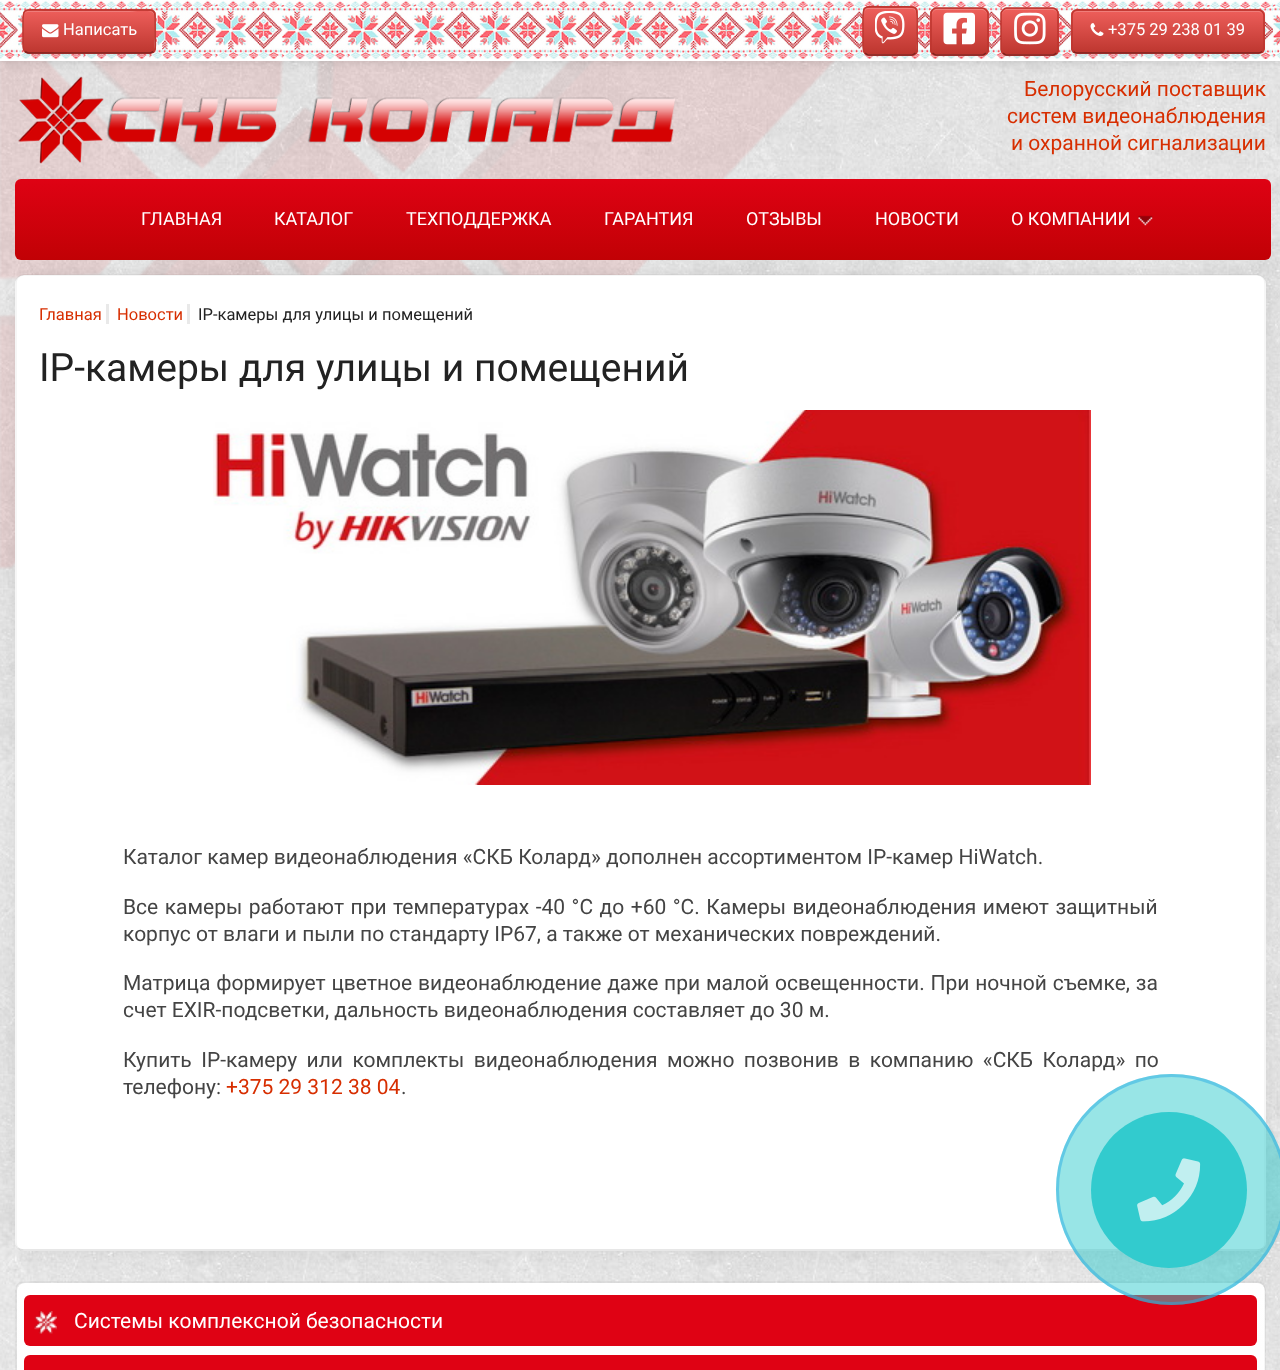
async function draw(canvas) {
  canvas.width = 1280
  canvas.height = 1370
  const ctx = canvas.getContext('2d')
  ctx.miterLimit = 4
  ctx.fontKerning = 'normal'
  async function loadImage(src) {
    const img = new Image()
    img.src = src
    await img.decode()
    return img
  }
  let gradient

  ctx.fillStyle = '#fff'
  ctx.fillRect(0, 0, 1280, 1370)
  ctx.drawImage(await loadImage('image0.png'), 0, 61, 1280, 1309)
  ctx.drawImage(await loadImage('image1.png'), 0, 61, 835, 508)
  ctx.fillStyle = '#0000000d'
  ctx.filter = 'blur(6px)'
  ctx.beginPath()
  ctx.rect(0, 5, 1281, 60)
  ctx.fill()
  ctx.filter = 'none'
  ctx.fillStyle = '#0000000f'
  ctx.filter = 'blur(2px)'
  ctx.beginPath()
  ctx.rect(0, 2, 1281, 60)
  ctx.fill()
  ctx.filter = 'none'
  ctx.drawImage(await loadImage('image2.png'), 0, 0, 1280, 59)
  ctx.fillStyle = '#fff'
  ctx.fillRect(0, 59, 1280, 2)
  ctx.fillStyle = '#0000000d'
  ctx.filter = 'blur(1.5px)'
  ctx.beginPath()
  ctx.roundRect(23, 11, 133, 45, 6)
  ctx.fill()
  ctx.filter = 'none'
  ctx.fillStyle = '#da4f49'
  ctx.beginPath()
  ctx.roundRect(23, 9, 133, 45, 6)
  ctx.fill()
  ctx.save()
  ctx.beginPath()
  ctx.roundRect(23, 9, 133, 45, 6)
  ctx.clip()
  gradient = ctx.createLinearGradient(89, 10, 89, 53)
  gradient.addColorStop(0, '#ee5f5b')
  gradient.addColorStop(1, '#bd362f')
  ctx.fillStyle = gradient
  ctx.fillRect(23, 11, 133, 42)
  ctx.restore()
  ctx.fillStyle = '#ffffff33'
  ctx.beginPath()
  ctx.moveTo(28, 12)
  ctx.lineTo(130, 12)
  ctx.bezierCurveTo(134, 12, 152, 8, 154, 15)
  ctx.lineTo(154, 51)
  ctx.bezierCurveTo(155, 50, 155, 49, 155, 48)
  ctx.lineTo(155, 16)
  ctx.bezierCurveTo(155, 13, 153, 11, 150, 11)
  ctx.lineTo(29, 11)
  ctx.bezierCurveTo(26, 11, 24, 13, 24, 16)
  ctx.bezierCurveTo(24, 14, 26, 12, 28, 12)
  ctx.closePath()
  ctx.fill()
  ctx.beginPath()
  ctx.moveTo(153.5, 51.5)
  ctx.lineTo(150.5, 53)
  ctx.lineTo(28, 53)
  ctx.lineTo(25, 51.5)
  ctx.strokeStyle = '#802420'
  ctx.lineWidth = 1.5
  ctx.stroke()
  ctx.beginPath()
  ctx.moveTo(25, 51.5)
  ctx.bezierCurveTo(22.5, 49.5, 23, 45.5, 23, 42.5)
  ctx.lineTo(23, 31.5)
  ctx.bezierCurveTo(23, 5, 20, 10, 49, 10)
  ctx.lineTo(150, 10)
  ctx.bezierCurveTo(156, 10, 155, 16.5, 155, 20.5)
  ctx.lineTo(155, 37)
  ctx.bezierCurveTo(155, 40.5, 157, 48.5, 153.5, 51.5)
  ctx.strokeStyle = '#bd362f'
  ctx.stroke()
  ctx.drawImage(await loadImage('image3.png'), 42, 24, 17, 14)
  ctx.font = '16.5px Roboto'
  ctx.fillStyle = '#fff'
  ctx.fillText('Написать', 63, 35)
  ctx.fillStyle = '#0000000d'
  ctx.filter = 'blur(1.5px)'
  ctx.beginPath()
  ctx.roundRect(863, 8, 55, 49, 6)
  ctx.fill()
  ctx.filter = 'none'
  ctx.fillStyle = '#da4f49'
  ctx.beginPath()
  ctx.roundRect(863, 6, 55, 50, 6)
  ctx.fill()
  ctx.save()
  ctx.beginPath()
  ctx.roundRect(863, 6, 55, 50, 6)
  ctx.clip()
  gradient = ctx.createLinearGradient(890, 7.5, 890, 54)
  gradient.addColorStop(0, '#ee5f5b')
  gradient.addColorStop(1, '#bd362f')
  ctx.fillStyle = gradient
  ctx.fillRect(863, 8, 55, 46)
  ctx.restore()
  ctx.fillStyle = '#ffffff33'
  ctx.beginPath()
  ctx.moveTo(868, 9)
  ctx.lineTo(913, 9)
  ctx.bezierCurveTo(917, 10, 916, 17, 916, 20)
  ctx.lineTo(916, 52)
  ctx.bezierCurveTo(918, 50, 917, 46, 917, 43)
  ctx.lineTo(917, 31)
  ctx.bezierCurveTo(917, 6, 922, 8, 898, 8)
  ctx.lineTo(876, 8)
  ctx.bezierCurveTo(870, 8, 864, 6, 864, 14)
  ctx.bezierCurveTo(864, 11, 866, 9, 868, 9)
  ctx.closePath()
  ctx.fill()
  ctx.beginPath()
  ctx.moveTo(915.5, 53)
  ctx.bezierCurveTo(914.5, 54, 913.5, 55, 912, 55)
  ctx.lineTo(868.5, 55)
  ctx.bezierCurveTo(867, 55, 866, 54, 865, 53)
  ctx.strokeStyle = '#802420'
  ctx.stroke()
  ctx.beginPath()
  ctx.moveTo(865, 53)
  ctx.bezierCurveTo(862.5, 50.5, 863, 46, 863, 43)
  ctx.lineTo(863, 31)
  ctx.bezierCurveTo(863, 1.5, 859.5, 7, 890, 7)
  ctx.bezierCurveTo(921, 7, 917, 1.5, 917, 31)
  ctx.lineTo(917, 43)
  ctx.bezierCurveTo(917, 46, 918, 50.5, 915.5, 53)
  ctx.strokeStyle = '#bd362f'
  ctx.stroke()
  ctx.drawImage(await loadImage('image4.png'), 875, 11, 30, 33)
  ctx.fillStyle = '#0000000d'
  ctx.filter = 'blur(1.5px)'
  ctx.beginPath()
  ctx.roundRect(930, 9, 59, 48, 6)
  ctx.fill()
  ctx.filter = 'none'
  ctx.fillStyle = '#da4f49'
  ctx.beginPath()
  ctx.roundRect(930, 8, 59, 48, 6)
  ctx.fill()
  ctx.save()
  ctx.beginPath()
  ctx.roundRect(930, 8, 59, 48, 6)
  ctx.clip()
  gradient = ctx.createLinearGradient(959, 9, 959, 54)
  gradient.addColorStop(0, '#ee5f5b')
  gradient.addColorStop(1, '#bd362f')
  ctx.fillStyle = gradient
  ctx.fillRect(930, 9, 59, 45)
  ctx.restore()
  ctx.fillStyle = '#ffffff33'
  ctx.beginPath()
  ctx.moveTo(936, 10)
  ctx.lineTo(982, 10)
  ctx.bezierCurveTo(985, 10, 987, 13, 987, 15)
  ctx.bezierCurveTo(987, 7, 980, 9, 974, 9)
  ctx.lineTo(944, 9)
  ctx.bezierCurveTo(939, 9, 932, 7, 932, 15)
  ctx.bezierCurveTo(932, 13, 934, 10, 936, 10)
  ctx.closePath()
  ctx.fill()
  ctx.beginPath()
  ctx.moveTo(986, 53)
  ctx.bezierCurveTo(985, 54, 984, 55, 982.5, 55)
  ctx.lineTo(936, 55)
  ctx.bezierCurveTo(934.5, 55, 933.5, 54, 932.5, 53)
  ctx.strokeStyle = '#802420'
  ctx.stroke()
  ctx.beginPath()
  ctx.moveTo(932.5, 53)
  ctx.bezierCurveTo(931.5, 52, 931, 51, 931, 49.5)
  ctx.lineTo(931, 13.5)
  ctx.bezierCurveTo(931, 12, 931.5, 11, 932.5, 10)
  ctx.bezierCurveTo(933.5, 9, 934.5, 8, 936, 8)
  ctx.lineTo(982.5, 8)
  ctx.bezierCurveTo(984, 8, 985, 9, 986, 10)
  ctx.bezierCurveTo(987, 11, 988, 12, 988, 13.5)
  ctx.lineTo(988, 49.5)
  ctx.bezierCurveTo(988, 51, 987, 52, 986, 53)
  ctx.strokeStyle = '#bd362f'
  ctx.stroke()
  ctx.drawImage(await loadImage('image5.png'), 943, 12, 32, 33)
  ctx.fillStyle = '#0000000d'
  ctx.filter = 'blur(1.5px)'
  ctx.beginPath()
  ctx.roundRect(1001, 9, 58, 48, 6)
  ctx.fill()
  ctx.filter = 'none'
  ctx.fillStyle = '#da4f49'
  ctx.beginPath()
  ctx.roundRect(1001, 8, 58, 48, 6)
  ctx.fill()
  ctx.save()
  ctx.beginPath()
  ctx.roundRect(1001, 8, 58, 48, 6)
  ctx.clip()
  gradient = ctx.createLinearGradient(1030, 9, 1030, 54)
  gradient.addColorStop(0, '#ee5f5b')
  gradient.addColorStop(1, '#bd362f')
  ctx.fillStyle = gradient
  ctx.fillRect(1001, 9, 58, 45)
  ctx.restore()
  ctx.fillStyle = '#ffffff33'
  ctx.beginPath()
  ctx.moveTo(1006, 10)
  ctx.lineTo(1053, 10)
  ctx.bezierCurveTo(1055, 10, 1058, 13, 1058, 15)
  ctx.bezierCurveTo(1058, 7, 1051, 9, 1045, 9)
  ctx.lineTo(1015, 9)
  ctx.bezierCurveTo(1009, 9, 1002, 7, 1002, 15)
  ctx.bezierCurveTo(1002, 13, 1004, 10, 1006, 10)
  ctx.closePath()
  ctx.fill()
  ctx.beginPath()
  ctx.moveTo(1056.5, 53)
  ctx.bezierCurveTo(1055.5, 54, 1054.5, 55, 1053, 55)
  ctx.lineTo(1006.5, 55)
  ctx.bezierCurveTo(1005, 55, 1004, 54, 1003, 53)
  ctx.strokeStyle = '#802420'
  ctx.stroke()
  ctx.beginPath()
  ctx.moveTo(1003, 53)
  ctx.bezierCurveTo(1002, 52, 1001, 51, 1001, 49.5)
  ctx.lineTo(1001, 13.5)
  ctx.bezierCurveTo(1001, 12, 1002, 11, 1003, 10)
  ctx.bezierCurveTo(1004, 9, 1005, 8, 1006.5, 8)
  ctx.lineTo(1053, 8)
  ctx.bezierCurveTo(1054.5, 8, 1055.5, 9, 1056.5, 10)
  ctx.bezierCurveTo(1057.5, 11, 1058, 12, 1058, 13.5)
  ctx.lineTo(1058, 49.5)
  ctx.bezierCurveTo(1058, 51, 1057.5, 52, 1056.5, 53)
  ctx.strokeStyle = '#bd362f'
  ctx.stroke()
  ctx.drawImage(await loadImage('image6.png'), 1014, 12, 32, 33)
  ctx.fillStyle = '#0000000d'
  ctx.filter = 'blur(1.5px)'
  ctx.beginPath()
  ctx.roundRect(1071, 11, 194, 45, 6)
  ctx.fill()
  ctx.filter = 'none'
  ctx.fillStyle = '#da4f49'
  ctx.beginPath()
  ctx.roundRect(1071, 9, 194, 45, 6)
  ctx.fill()
  ctx.save()
  ctx.beginPath()
  ctx.roundRect(1071, 9, 194, 45, 6)
  ctx.clip()
  gradient = ctx.createLinearGradient(1168, 10, 1168, 53)
  gradient.addColorStop(0, '#ee5f5b')
  gradient.addColorStop(1, '#bd362f')
  ctx.fillStyle = gradient
  ctx.fillRect(1071, 11, 194, 42)
  ctx.restore()
  ctx.fillStyle = '#f07e7a'
  ctx.beginPath()
  ctx.moveTo(1077, 12)
  ctx.lineTo(1258, 12)
  ctx.bezierCurveTo(1261, 12, 1263, 14, 1263, 16)
  ctx.bezierCurveTo(1263, 13, 1261, 11, 1258, 11)
  ctx.lineTo(1078, 11)
  ctx.bezierCurveTo(1076, 11, 1075, 12, 1074, 13)
  ctx.closePath()
  ctx.fill()
  ctx.beginPath()
  ctx.moveTo(1262, 51.5)
  ctx.bezierCurveTo(1261, 52.5, 1260, 53, 1258.5, 53)
  ctx.lineTo(1077, 53)
  ctx.bezierCurveTo(1075.5, 53, 1074.5, 52.5, 1073.5, 51.5)
  ctx.strokeStyle = '#802420'
  ctx.stroke()
  ctx.beginPath()
  ctx.moveTo(1073.5, 51.5)
  ctx.bezierCurveTo(1072.5, 50.5, 1072, 49.5, 1072, 48)
  ctx.lineTo(1072, 15)
  ctx.bezierCurveTo(1072, 13.5, 1072.5, 12.5, 1073.5, 11.5)
  ctx.bezierCurveTo(1074.5, 10.5, 1075.5, 10, 1077, 10)
  ctx.lineTo(1258.5, 10)
  ctx.bezierCurveTo(1260, 10, 1261, 10.5, 1262, 11.5)
  ctx.bezierCurveTo(1263, 12.5, 1264, 13.5, 1264, 15)
  ctx.lineTo(1264, 48)
  ctx.bezierCurveTo(1264, 49.5, 1263, 50.5, 1262, 51.5)
  ctx.strokeStyle = '#bd362f'
  ctx.stroke()
  ctx.drawImage(await loadImage('image7.png'), 1090, 23, 14, 13)
  ctx.fillStyle = '#fff'
  ctx.fillText('+375 29 238 01 39', 1108, 35)
  ctx.drawImage(await loadImage('image8.png'), 18, 76, 657, 88)
  ctx.font = '21px Roboto'
  ctx.fillStyle = '#d72e00'
  ctx.fillText('Белорусский поставщик', 1024, 96)
  ctx.fillText('систем видеонаблюдения', 1007, 123)
  ctx.fillText('и охранной сигнализации', 1011, 150)
  ctx.fillStyle = '#00000012'
  ctx.filter = 'blur(11px)'
  ctx.beginPath()
  ctx.roundRect(15, 275, 1251, 976, 9)
  ctx.fill()
  ctx.filter = 'none'
  gradient = ctx.createLinearGradient(643, 178, 643, 260)
  gradient.addColorStop(0, '#df0214')
  gradient.addColorStop(1, '#c10105')
  ctx.fillStyle = gradient
  ctx.beginPath()
  ctx.roundRect(15, 179, 1256, 81, 6)
  ctx.fill()
  ctx.font = '18px Roboto'
  ctx.fillStyle = '#fff'
  ctx.fillText('ГЛАВНАЯ', 141, 225)
  ctx.fillText('КАТАЛОГ', 274, 225)
  ctx.fillText('ТЕХПОДДЕРЖКА', 406, 225)
  ctx.fillText('ГАРАНТИЯ', 604, 225)
  ctx.fillText('ОТЗЫВЫ', 746, 225)
  ctx.fillText('НОВОСТИ', 875, 225)
  ctx.drawImage(await loadImage('image9.png'), 1138, 215, 15, 11)
  ctx.fillText('О КОМПАНИИ', 1011, 225)
  ctx.beginPath()
  ctx.roundRect(15, 275, 1251, 976, 9)
  ctx.fill()
  ctx.beginPath()
  ctx.moveTo(1263, 1248)
  ctx.bezierCurveTo(1261.5, 1249.5, 1259, 1250, 1257, 1250)
  ctx.lineTo(24, 1250)
  ctx.bezierCurveTo(22, 1250, 19.5, 1249.5, 18, 1248)
  ctx.strokeStyle = '#00000021'
  ctx.stroke()
  ctx.beginPath()
  ctx.moveTo(18, 1248)
  ctx.bezierCurveTo(16.5, 1246.5, 16, 1244, 16, 1242)
  ctx.lineTo(16, 283.5)
  ctx.bezierCurveTo(16, 281.5, 16.5, 279, 18, 277.5)
  ctx.bezierCurveTo(19.5, 276, 22, 275, 24, 275)
  ctx.lineTo(1257, 275)
  ctx.bezierCurveTo(1259, 275, 1261.5, 276, 1263, 277.5)
  ctx.bezierCurveTo(1264.5, 279, 1265, 281.5, 1265, 283.5)
  ctx.lineTo(1265, 1242)
  ctx.bezierCurveTo(1265, 1244, 1264.5, 1246.5, 1263, 1248)
  ctx.strokeStyle = '#0000000d'
  ctx.stroke()
  ctx.fillStyle = '#e9e9e9'
  ctx.fillRect(106, 304, 3, 20)
  ctx.font = '16.5px Roboto'
  ctx.fillStyle = '#d72e00'
  ctx.fillText('Главная', 39, 320)
  ctx.fillStyle = '#e9e9e9'
  ctx.fillRect(187, 304, 3, 20)
  ctx.fillStyle = '#d72e00'
  ctx.fillText('Новости', 117, 320)
  ctx.fillStyle = '#222'
  ctx.fillText('IP-камеры для улицы и помещений', 198, 320)
  ctx.font = '39px Roboto'
  ctx.fillText('IP-камеры для улицы и помещений', 39, 381)
  ctx.drawImage(await loadImage('image10.png'), 213, 410, 878, 375)
  ctx.font = '21px Roboto'
  ctx.fillStyle = '#444'
  ctx.fillText('Каталог камер видеонаблюдения «СКБ Колард» дополнен ассортиментом IP-камер HiWatch.', 123, 864)
  ctx.wordSpacing = '1.3px'
  ctx.fillText('Все камеры работают при температурах -40 °C до +60 °C. Камеры видеонаблюдения имеют защитный', 123, 914)
  ctx.wordSpacing = '0px'
  ctx.fillText('корпус от влаги и пыли по стандарту IP67, а также от механических повреждений.', 123, 941)
  ctx.wordSpacing = '0.6px'
  ctx.fillText('Матрица формирует цветное видеонаблюдение даже при малой освещенности. При ночной съемке, за', 123, 990)
  ctx.wordSpacing = '0px'
  ctx.fillText('счет EXIR-подсветки, дальность видеонаблюдения составляет до 30 м.', 123, 1017)
  ctx.wordSpacing = '4.25px'
  ctx.fillText('Купить IP-камеру или комплекты видеонаблюдения можно позвонив в компанию «СКБ Колард» по', 123, 1067)
  ctx.wordSpacing = '0px'
  ctx.fillText('телефону:', 123, 1094)
  ctx.fillStyle = '#d72e00'
  ctx.fillText('+375 29 312 38 04', 226, 1094)
  ctx.fillStyle = '#444'
  ctx.fillText('.', 401, 1094)
  gradient = ctx.createLinearGradient(640, 1283, 641, 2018)
  gradient.addColorStop(0, '#fff')
  gradient.addColorStop(1, '#f5f5f5')
  ctx.fillStyle = gradient
  ctx.beginPath()
  ctx.roundRect(17, 1283, 1248, 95, 8)
  ctx.fill()
  ctx.beginPath()
  ctx.moveTo(18, 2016)
  ctx.bezierCurveTo(16.5, 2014.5, 16, 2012, 16, 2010)
  ctx.lineTo(16, 1290)
  ctx.bezierCurveTo(16, 1288, 16.5, 1285.5, 18, 1284)
  ctx.bezierCurveTo(19.5, 1282.5, 22, 1282, 24, 1282)
  ctx.lineTo(1257, 1282)
  ctx.bezierCurveTo(1259, 1282, 1261.5, 1282.5, 1263, 1284)
  ctx.bezierCurveTo(1264.5, 1285.5, 1265, 1288, 1265, 1290)
  ctx.lineTo(1265, 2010)
  ctx.bezierCurveTo(1265, 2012, 1264.5, 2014.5, 1263, 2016)
  ctx.stroke()
  ctx.fillStyle = '#df0214'
  ctx.beginPath()
  ctx.roundRect(24, 1295, 1233, 51, 6)
  ctx.fill()
  ctx.drawImage(await loadImage('image11.png'), 34, 1311, 23, 23)
  ctx.fillStyle = '#fff'
  ctx.fillText('Системы комплексной безопасности', 74, 1328)
  ctx.fillStyle = '#df0214'
  ctx.beginPath()
  ctx.roundRect(24, 1355, 1233, 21, 6)
  ctx.fill()
  ctx.fillStyle = '#32cbce80'
  ctx.beginPath()
  ctx.arc(1171.5, 1189.5, 115.5, 0, 2 * Math.PI)
  ctx.fill()
  ctx.beginPath()
  ctx.arc(1171.5, 1189.5, 114, 0, 2 * Math.PI)
  ctx.strokeStyle = '#29aee380'
  ctx.lineWidth = 3
  ctx.stroke()
  ctx.fillStyle = '#32cbce'
  ctx.beginPath()
  ctx.arc(1169, 1190, 78, 0, 2 * Math.PI)
  ctx.fill()
  ctx.drawImage(await loadImage('image12.png'), 1137, 1158, 64, 64)
}

draw(document.querySelector('canvas'))
